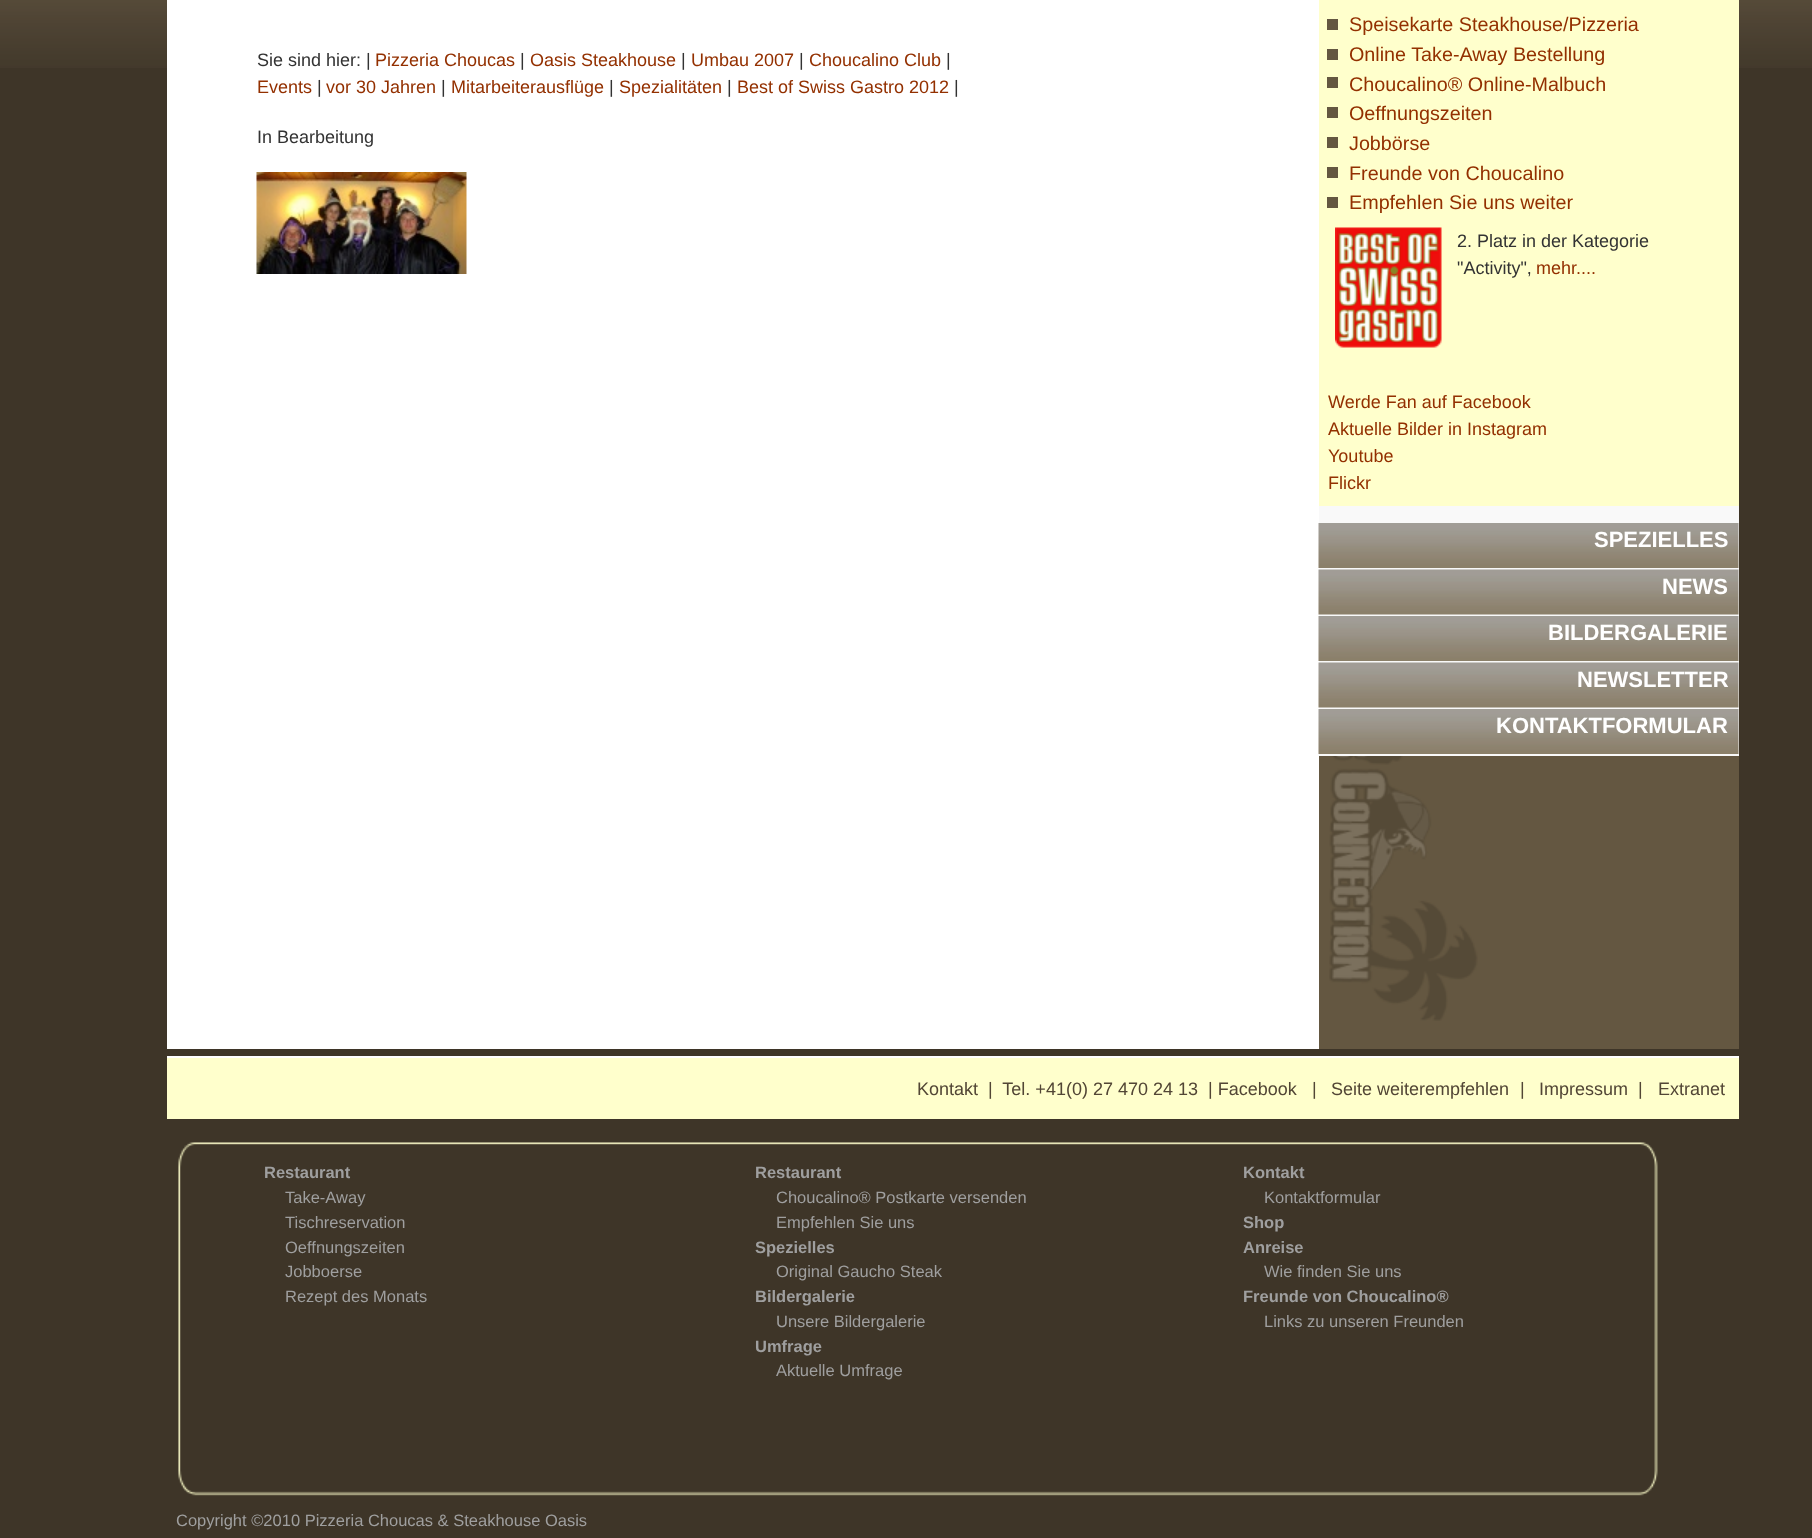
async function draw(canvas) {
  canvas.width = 1812
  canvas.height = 1538
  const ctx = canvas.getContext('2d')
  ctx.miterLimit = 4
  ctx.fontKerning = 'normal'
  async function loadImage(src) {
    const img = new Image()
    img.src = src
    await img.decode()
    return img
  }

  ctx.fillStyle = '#3e3528'
  ctx.fillRect(0, 0, 1812, 1538)
  ctx.drawImage(await loadImage('image0.png'), 0, 0, 1812, 68)
  ctx.fillStyle = '#fff'
  ctx.fillRect(167, 0, 1152, 1049)
  ctx.font = '18px Liberation Sans'
  ctx.fillStyle = '#333'
  ctx.fillText('Sie sind hier: |', 257, 66)
  ctx.fillStyle = '#933000'
  ctx.fillText('Pizzeria Choucas', 375, 66)
  ctx.fillStyle = '#333'
  ctx.fillText('|', 520, 66)
  ctx.fillStyle = '#933000'
  ctx.fillText('Oasis Steakhouse', 530, 66)
  ctx.fillStyle = '#333'
  ctx.fillText('|', 681, 66)
  ctx.fillStyle = '#933000'
  ctx.fillText('Umbau 2007', 691, 66)
  ctx.fillStyle = '#333'
  ctx.fillText('|', 799, 66)
  ctx.fillStyle = '#933000'
  ctx.fillText('Choucalino Club', 809, 66)
  ctx.fillStyle = '#333'
  ctx.fillText('|', 946, 66)
  ctx.fillStyle = '#933000'
  ctx.fillText('Events', 257, 93)
  ctx.fillStyle = '#333'
  ctx.fillText('|', 317, 93)
  ctx.fillStyle = '#933000'
  ctx.fillText('vor 30 Jahren', 326, 93)
  ctx.fillStyle = '#333'
  ctx.fillText('|', 441, 93)
  ctx.fillStyle = '#933000'
  ctx.fillText('Mitarbeiterausflüge', 451, 93)
  ctx.fillStyle = '#333'
  ctx.fillText('|', 609, 93)
  ctx.fillStyle = '#933000'
  ctx.fillText('Spezialitäten', 619, 93)
  ctx.fillStyle = '#333'
  ctx.fillText('|', 727, 93)
  ctx.fillStyle = '#933000'
  ctx.fillText('Best of Swiss Gastro 2012', 737, 93)
  ctx.fillStyle = '#333'
  ctx.fillText('|', 954, 93)
  ctx.fillText('In Bearbeitung', 257, 143)
  ctx.drawImage(await loadImage('image1.png'), 256, 172, 211, 102)
  ctx.fillStyle = '#645741'
  ctx.fillRect(1319, 756, 420, 293)
  ctx.drawImage(await loadImage('image2.png'), 1329, 756, 149, 265)
  ctx.fillStyle = '#f9f9f9'
  ctx.fillRect(1319, 506, 420, 250)
  ctx.fillStyle = '#ffc'
  ctx.fillRect(1319, 0, 420, 506)
  ctx.font = '19.75px Liberation Sans'
  ctx.fillStyle = '#933000'
  ctx.fillText('Speisekarte Steakhouse/Pizzeria', 1349, 31)
  ctx.fillStyle = '#645741'
  ctx.fillRect(1327, 19, 11, 11)
  ctx.fillStyle = '#933000'
  ctx.fillText('Online Take-Away Bestellung', 1349, 61)
  ctx.fillStyle = '#645741'
  ctx.fillRect(1327, 49, 11, 11)
  ctx.fillStyle = '#933000'
  ctx.fillText('Choucalino® Online-Malbuch', 1349, 91)
  ctx.fillStyle = '#645741'
  ctx.fillRect(1327, 77, 11, 11)
  ctx.fillStyle = '#933000'
  ctx.fillText('Oeffnungszeiten', 1349, 120)
  ctx.fillStyle = '#645741'
  ctx.fillRect(1327, 107, 11, 11)
  ctx.fillStyle = '#933000'
  ctx.fillText('Jobbörse', 1349, 150)
  ctx.fillStyle = '#645741'
  ctx.fillRect(1327, 137, 11, 11)
  ctx.fillStyle = '#933000'
  ctx.fillText('Freunde von Choucalino', 1349, 180)
  ctx.fillStyle = '#645741'
  ctx.fillRect(1327, 167, 11, 11)
  ctx.fillStyle = '#933000'
  ctx.fillText('Empfehlen Sie uns weiter', 1349, 209)
  ctx.fillStyle = '#645741'
  ctx.fillRect(1327, 197, 11, 11)
  ctx.drawImage(await loadImage('image3.png'), 1335, 227, 107, 121)
  ctx.font = '18px Liberation Sans'
  ctx.fillStyle = '#333'
  ctx.fillText('2. Platz in der Kategorie', 1457, 247)
  ctx.fillText('"Activity",', 1457, 274)
  ctx.fillStyle = '#933000'
  ctx.fillText('mehr....', 1536, 274)
  ctx.fillText('Werde Fan auf Facebook', 1328, 408)
  ctx.fillText('Aktuelle Bilder in Instagram', 1328, 435)
  ctx.fillText('Youtube', 1328, 462)
  ctx.fillText('Flickr', 1328, 489)
  ctx.drawImage(await loadImage('image4.png'), 1318, 523, 421, 45)
  ctx.font = 'bold 22px Liberation Sans'
  ctx.fillStyle = '#fff'
  ctx.fillText('SPEZIELLES', 1594, 547)
  ctx.drawImage(await loadImage('image5.png'), 1318, 569, 421, 46)
  ctx.fillText('NEWS', 1662, 594)
  ctx.drawImage(await loadImage('image4.png'), 1318, 616, 421, 45)
  ctx.fillText('BILDERGALERIE', 1548, 640)
  ctx.drawImage(await loadImage('image5.png'), 1318, 662, 421, 46)
  ctx.fillText('NEWSLETTER', 1577, 687)
  ctx.drawImage(await loadImage('image4.png'), 1318, 709, 421, 45)
  ctx.fillText('KONTAKTFORMULAR', 1496, 733)
  ctx.fillStyle = '#ffc'
  ctx.fillRect(167, 1058, 1572, 61)
  ctx.fillStyle = '#fff'
  ctx.fillRect(167, 1056, 1572, 2)
  ctx.font = '18px Liberation Sans'
  ctx.fillStyle = '#524635'
  ctx.fillText('Kontakt', 917, 1095)
  ctx.fillText('|  Tel. +41(0) 27 470 24 13  | Facebook', 988, 1095)
  ctx.fillText('|', 1312, 1095)
  ctx.fillText('Seite weiterempfehlen', 1331, 1095)
  ctx.fillText('|', 1520, 1095)
  ctx.fillText('Impressum', 1539, 1095)
  ctx.fillText('|', 1638, 1095)
  ctx.fillText('Extranet', 1658, 1095)
  ctx.drawImage(await loadImage('image6.png'), 178, 1142, 1480, 354)
  ctx.font = 'bold 16.5px Liberation Sans'
  ctx.fillStyle = '#9f9f9f'
  ctx.fillText('Restaurant', 264, 1178)
  ctx.font = '16.5px Liberation Sans'
  ctx.fillText('Take-Away', 285, 1203)
  ctx.fillText('Tischreservation', 285, 1228)
  ctx.fillText('Oeffnungszeiten', 285, 1253)
  ctx.fillText('Jobboerse', 285, 1277)
  ctx.fillText('Rezept des Monats', 285, 1302)
  ctx.font = 'bold 16.5px Liberation Sans'
  ctx.fillText('Restaurant', 755, 1178)
  ctx.font = '16.5px Liberation Sans'
  ctx.fillText('Choucalino® Postkarte versenden', 776, 1203)
  ctx.fillText('Empfehlen Sie uns', 776, 1228)
  ctx.font = 'bold 16.5px Liberation Sans'
  ctx.fillText('Spezielles', 755, 1253)
  ctx.font = '16.5px Liberation Sans'
  ctx.fillText('Original Gaucho Steak', 776, 1277)
  ctx.font = 'bold 16.5px Liberation Sans'
  ctx.fillText('Bildergalerie', 755, 1302)
  ctx.font = '16.5px Liberation Sans'
  ctx.fillText('Unsere Bildergalerie', 776, 1327)
  ctx.font = 'bold 16.5px Liberation Sans'
  ctx.fillText('Umfrage', 755, 1352)
  ctx.font = '16.5px Liberation Sans'
  ctx.fillText('Aktuelle Umfrage', 776, 1376)
  ctx.font = 'bold 16.5px Liberation Sans'
  ctx.fillText('Kontakt', 1243, 1178)
  ctx.font = '16.5px Liberation Sans'
  ctx.fillText('Kontaktformular', 1264, 1203)
  ctx.font = 'bold 16.5px Liberation Sans'
  ctx.fillText('Shop', 1243, 1228)
  ctx.fillText('Anreise', 1243, 1253)
  ctx.font = '16.5px Liberation Sans'
  ctx.fillText('Wie finden Sie uns', 1264, 1277)
  ctx.font = 'bold 16.5px Liberation Sans'
  ctx.fillText('Freunde von Choucalino®', 1243, 1302)
  ctx.font = '16.5px Liberation Sans'
  ctx.fillText('Links zu unseren Freunden', 1264, 1327)
  ctx.fillText('Copyright ©2010 Pizzeria Choucas & Steakhouse Oasis', 176, 1526)
}

draw(document.querySelector('canvas'))
